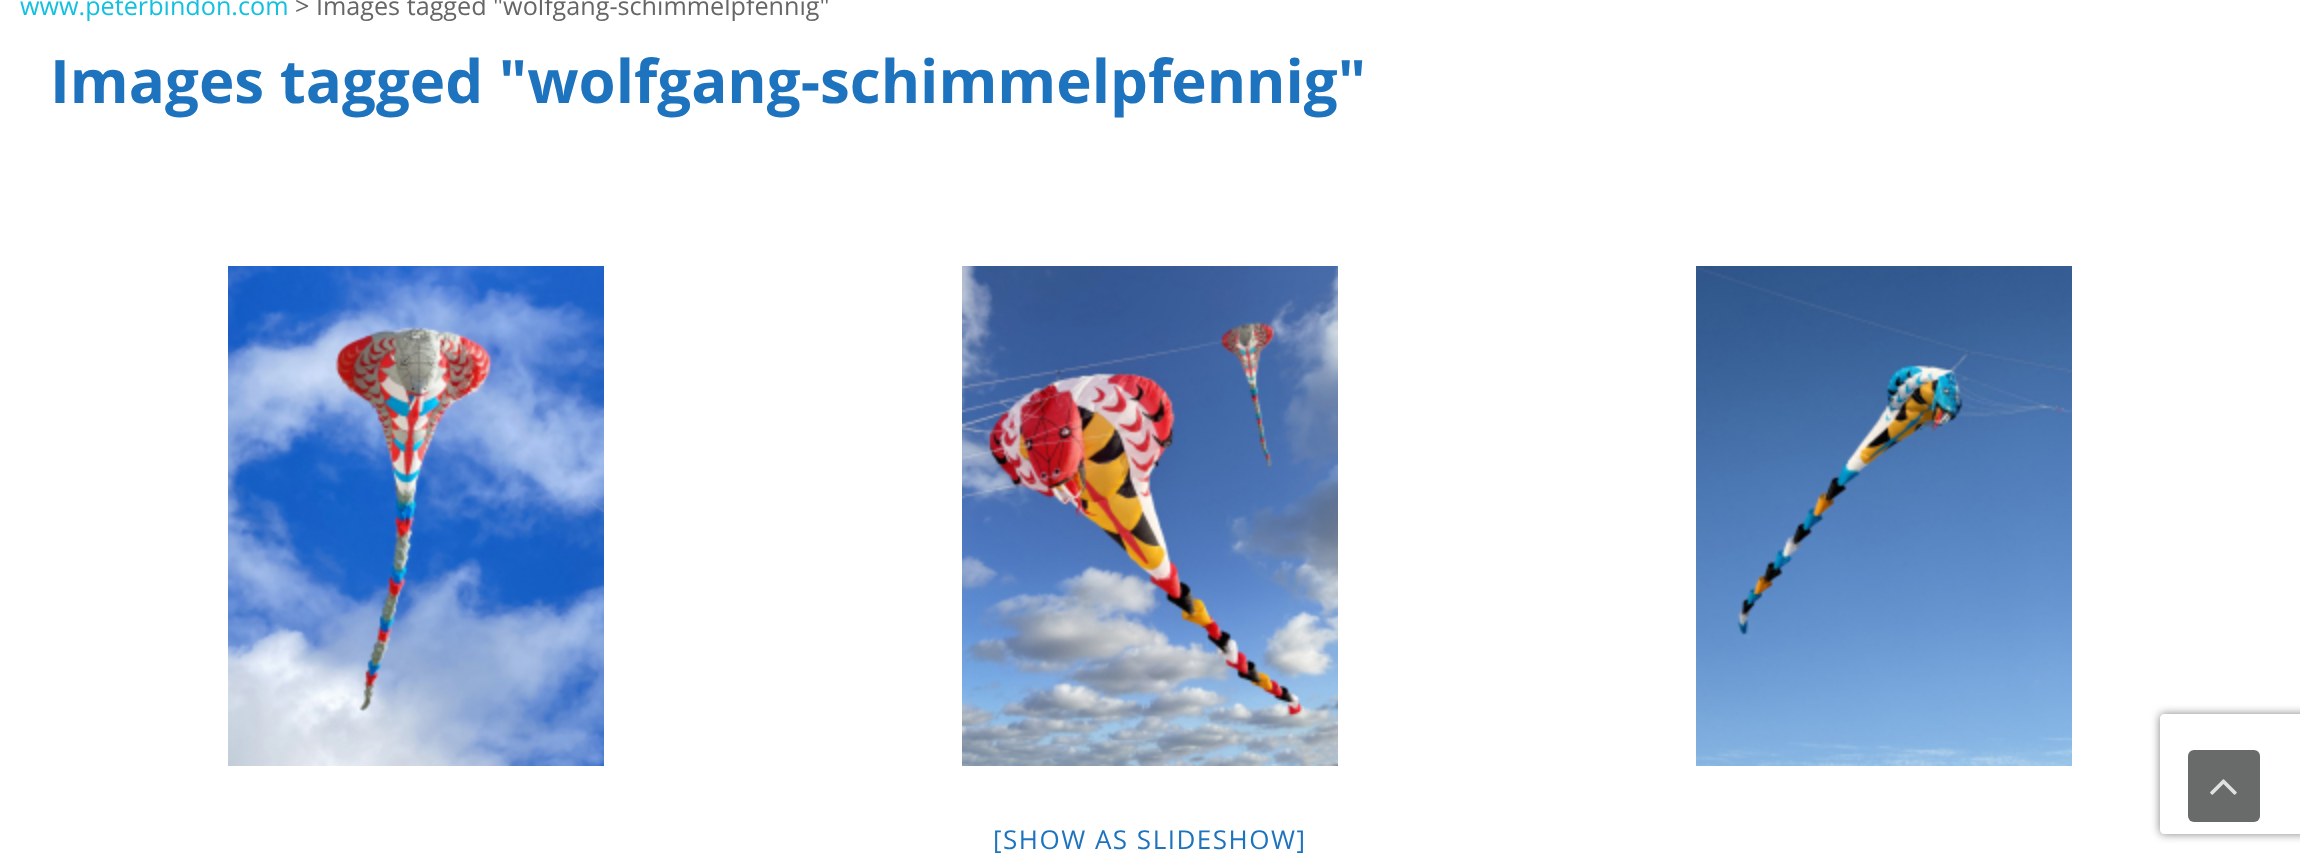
async function draw(canvas) {
  canvas.width = 2300
  canvas.height = 862
  const ctx = canvas.getContext('2d')
  ctx.miterLimit = 4
  ctx.fontKerning = 'normal'
  async function loadImage(src) {
    const img = new Image()
    img.src = src
    await img.decode()
    return img
  }

  ctx.fillStyle = '#fff'
  ctx.fillRect(0, 0, 2300, 862)
  ctx.font = '25.2px Open Sans'
  ctx.fillStyle = '#13c0df'
  ctx.fillText('www.peterbindon.com', 20, 15)
  ctx.fillStyle = '#666'
  ctx.fillText('> Images tagged "wolfgang-schimmelpfennig"', 295, 15)
  ctx.font = 'bold 60px Open Sans'
  ctx.fillStyle = '#1e73be'
  ctx.fillText('Images tagged "wolfgang-schimmelpfennig"', 50, 103)
  ctx.drawImage(await loadImage('image0.png'), 228, 266, 376, 500)
  ctx.drawImage(await loadImage('image1.png'), 962, 266, 376, 500)
  ctx.drawImage(await loadImage('image2.png'), 1696, 266, 376, 500)
  ctx.letterSpacing = '1.5px'
  ctx.font = '26px Open Sans'
  ctx.fillText('[SHOW AS SLIDESHOW]', 993, 849)
  ctx.save()
  ctx.beginPath()
  ctx.moveTo(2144, 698)
  ctx.lineTo(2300, 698)
  ctx.lineTo(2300, 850)
  ctx.lineTo(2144, 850)
  ctx.closePath()
  ctx.moveTo(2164, 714)
  ctx.lineTo(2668, 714)
  ctx.bezierCurveTo(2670, 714, 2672, 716, 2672, 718)
  ctx.lineTo(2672, 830)
  ctx.bezierCurveTo(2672, 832, 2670, 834, 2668, 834)
  ctx.lineTo(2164, 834)
  ctx.bezierCurveTo(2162, 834, 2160, 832, 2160, 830)
  ctx.lineTo(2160, 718)
  ctx.bezierCurveTo(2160, 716, 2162, 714, 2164, 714)
  ctx.closePath()
  ctx.clip('evenodd')
  ctx.fillStyle = '#808080'
  ctx.filter = 'blur(5px)'
  ctx.beginPath()
  ctx.roundRect(2160, 714, 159, 120, 4)
  ctx.fill()
  ctx.filter = 'none'
  ctx.restore()
  ctx.fillStyle = '#696a6a'
  ctx.beginPath()
  ctx.roundRect(2188, 750, 72, 72, 6)
  ctx.fill()
  ctx.drawImage(await loadImage('image3.png'), 2210, 779, 27, 16)
}

draw(document.querySelector('canvas'))
